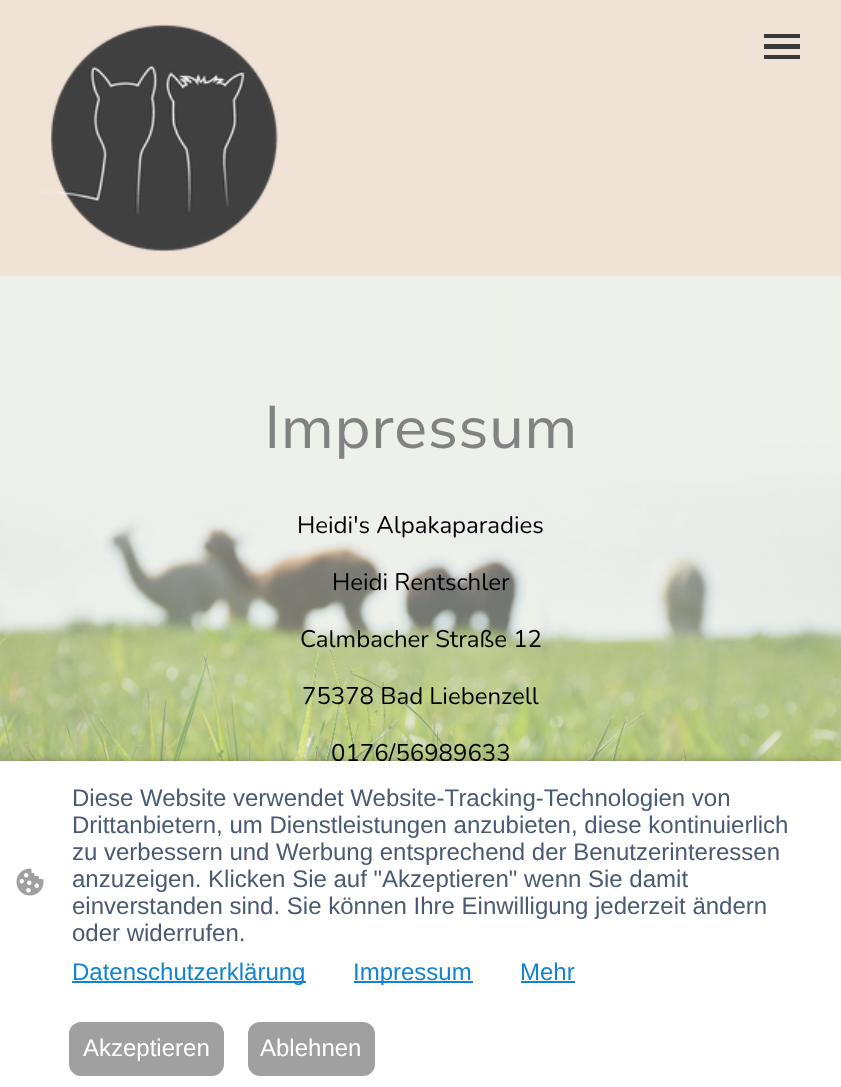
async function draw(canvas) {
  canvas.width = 841
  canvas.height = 1087
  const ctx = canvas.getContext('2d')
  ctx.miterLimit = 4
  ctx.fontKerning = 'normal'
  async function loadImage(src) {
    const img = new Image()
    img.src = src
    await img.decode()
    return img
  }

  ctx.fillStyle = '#f1e2d6'
  ctx.fillRect(0, 0, 841, 1087)
  ctx.drawImage(await loadImage('image0.png'), 39, 24, 239, 228)
  ctx.fillStyle = '#383838'
  ctx.fillRect(764, 34, 36, 4)
  ctx.fillRect(764, 44, 36, 5)
  ctx.fillRect(764, 55, 36, 4)
  ctx.drawImage(await loadImage('image1.png'), 0, 276, 841, 485)
  ctx.font = '60px Nunito Sans'
  ctx.fillStyle = '#828282'
  ctx.fillText('Impressum', 264, 448)
  ctx.font = '24px Nunito'
  ctx.fillStyle = '#000'
  ctx.fillText('Heidi\'s Alpakaparadies', 297, 533)
  ctx.fillText('Heidi Rentschler', 332, 590)
  ctx.fillText('Calmbacher Straße 12', 300, 647)
  ctx.fillText('75378 Bad Liebenzell', 302, 704)
  ctx.fillText('0176/56989633', 331, 761)
  ctx.fillStyle = '#000000a1'
  ctx.filter = 'blur(6px)'
  ctx.beginPath()
  ctx.rect(9, 765, 824, 309)
  ctx.fill()
  ctx.filter = 'none'
  ctx.fillStyle = '#fff'
  ctx.fillRect(0, 761, 841, 326)
  ctx.drawImage(await loadImage('image2.png'), 16, 868, 28, 28)
  ctx.font = '24px Liberation Sans'
  ctx.fillStyle = '#4a5a73'
  ctx.fillText('Diese Website verwendet Website-Tracking-Technologien von', 72, 806)
  ctx.fillText('Drittanbietern, um Dienstleistungen anzubieten, diese kontinuierlich', 72, 833)
  ctx.fillText('zu verbessern und Werbung entsprechend der Benutzerinteressen', 72, 860)
  ctx.fillText('anzuzeigen. Klicken Sie auf "Akzeptieren" wenn Sie damit', 72, 887)
  ctx.fillText('einverstanden sind. Sie können Ihre Einwilligung jederzeit ändern', 72, 914)
  ctx.fillText('oder widerrufen.', 72, 941)
  ctx.fillStyle = '#1183d1'
  ctx.fillRect(72, 981, 234, 2)
  ctx.fillText('Datenschutzerklärung', 72, 980)
  ctx.fillRect(354, 981, 119, 2)
  ctx.fillText('Impressum', 353, 980)
  ctx.fillText('Mehr', 520, 980)
  ctx.fillRect(521, 981, 54, 2)
  ctx.fillStyle = '#a0a0a0'
  ctx.beginPath()
  ctx.roundRect(70, 1023, 153, 52, 11)
  ctx.fill()
  ctx.strokeStyle = '#a0a0a0'
  ctx.lineWidth = 2
  ctx.stroke()
  ctx.fillStyle = '#fff'
  ctx.fillText('Akzeptieren', 83, 1056)
  ctx.fillStyle = '#a0a0a0'
  ctx.beginPath()
  ctx.roundRect(249, 1023, 125, 52, 11)
  ctx.fill()
  ctx.stroke()
  ctx.fillStyle = '#fff'
  ctx.fillText('Ablehnen', 260, 1056)
}

draw(document.querySelector('canvas'))
